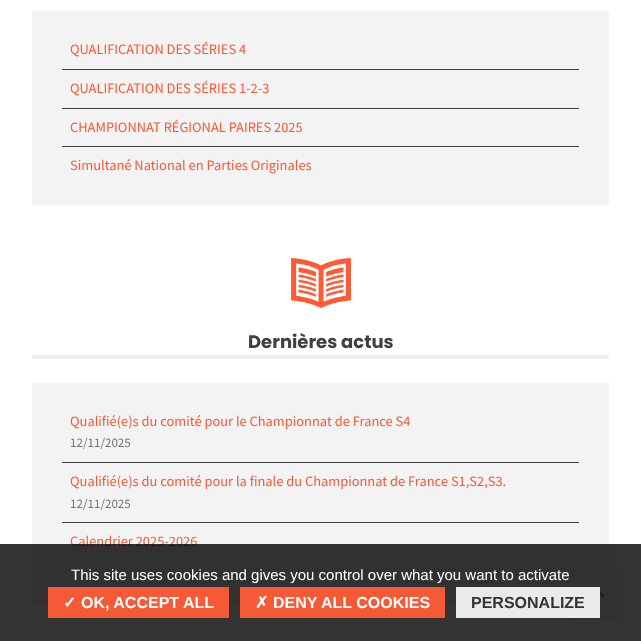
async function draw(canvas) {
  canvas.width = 641
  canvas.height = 641
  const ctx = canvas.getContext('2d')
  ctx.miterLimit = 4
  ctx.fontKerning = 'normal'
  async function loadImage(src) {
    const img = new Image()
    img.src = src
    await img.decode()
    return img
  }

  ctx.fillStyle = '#fff'
  ctx.fillRect(0, 0, 641, 641)
  ctx.fillStyle = '#f3f3f3'
  ctx.fillRect(32, 11, 577, 194)
  ctx.fillStyle = '#404040'
  ctx.fillRect(62, 69, 517, 1)
  ctx.font = '14.4px Source Sans Pro'
  ctx.fillStyle = '#f65936'
  ctx.fillText('QUALIFICATION DES SÉRIES 4', 70, 54)
  ctx.fillStyle = '#404040'
  ctx.fillRect(62, 108, 517, 1)
  ctx.fillStyle = '#f65936'
  ctx.fillText('QUALIFICATION DES SÉRIES 1-2-3', 70, 93)
  ctx.fillStyle = '#404040'
  ctx.fillRect(62, 146, 517, 1)
  ctx.fillStyle = '#f65936'
  ctx.fillText('CHAMPIONNAT RÉGIONAL PAIRES 2025', 70, 132)
  ctx.fillText('Simultané National en Parties Originales', 70, 170)
  ctx.fillStyle = '#eee'
  ctx.fillRect(32, 355, 577, 4)
  ctx.drawImage(await loadImage('image0.png'), 291, 258, 60, 50)
  ctx.font = 'bold 18px Poppins'
  ctx.fillStyle = '#404040'
  ctx.fillText('Dernières actus', 248, 348)
  ctx.fillStyle = '#f3f3f3'
  ctx.fillRect(32, 383, 577, 220)
  ctx.fillStyle = '#404040'
  ctx.fillRect(62, 462, 517, 1)
  ctx.font = '14.4px Source Sans Pro'
  ctx.fillStyle = '#f65936'
  ctx.fillText('Qualifié(e)s du comité pour le Championnat de France S4', 70, 426)
  ctx.font = '13px Source Sans Pro'
  ctx.fillStyle = '#767676'
  ctx.fillText('12/11/2025', 70, 447)
  ctx.fillStyle = '#404040'
  ctx.fillRect(62, 522, 517, 1)
  ctx.font = '14.4px Source Sans Pro'
  ctx.fillStyle = '#f65936'
  ctx.fillText('Qualifié(e)s du comité pour la finale du Championnat de France S1,S2,S3.', 70, 486)
  ctx.font = '13px Source Sans Pro'
  ctx.fillStyle = '#767676'
  ctx.fillText('12/11/2025', 70, 508)
  ctx.font = '14.4px Source Sans Pro'
  ctx.fillStyle = '#f65936'
  ctx.fillText('Calendrier 2025-2026', 70, 546)
  ctx.fillStyle = '#f3f3f3'
  ctx.fillRect(571, 571, 50, 50)
  ctx.drawImage(await loadImage('image1.png'), 600, 592, 5, 6)
  ctx.fillStyle = '#000000cc'
  ctx.fillRect(0, 544, 641, 97)
  ctx.font = '15px Liberation Sans'
  ctx.fillStyle = '#fff'
  ctx.fillText('This site uses cookies and gives you control over what you want to activate', 71, 580)
  ctx.fillStyle = '#f65936'
  ctx.fillRect(48, 587, 181, 31)
  ctx.font = 'bold 16px DejaVu Sans'
  ctx.fillStyle = '#fff'
  ctx.fillText('✓', 63, 608)
  ctx.font = 'bold 16px Liberation Sans'
  ctx.fillText('OK, ACCEPT ALL', 81, 608)
  ctx.fillStyle = '#f65936'
  ctx.fillRect(240, 587, 205, 31)
  ctx.font = 'bold 16px DejaVu Sans'
  ctx.fillStyle = '#fff'
  ctx.fillText('✗', 255, 608)
  ctx.font = 'bold 16px Liberation Sans'
  ctx.fillText('DENY ALL COOKIES', 273, 608)
  ctx.fillStyle = '#eaeaea'
  ctx.fillRect(456, 587, 144, 31)
  ctx.fillStyle = '#333'
  ctx.fillText('PERSONALIZE', 471, 608)
}

draw(document.querySelector('canvas'))
